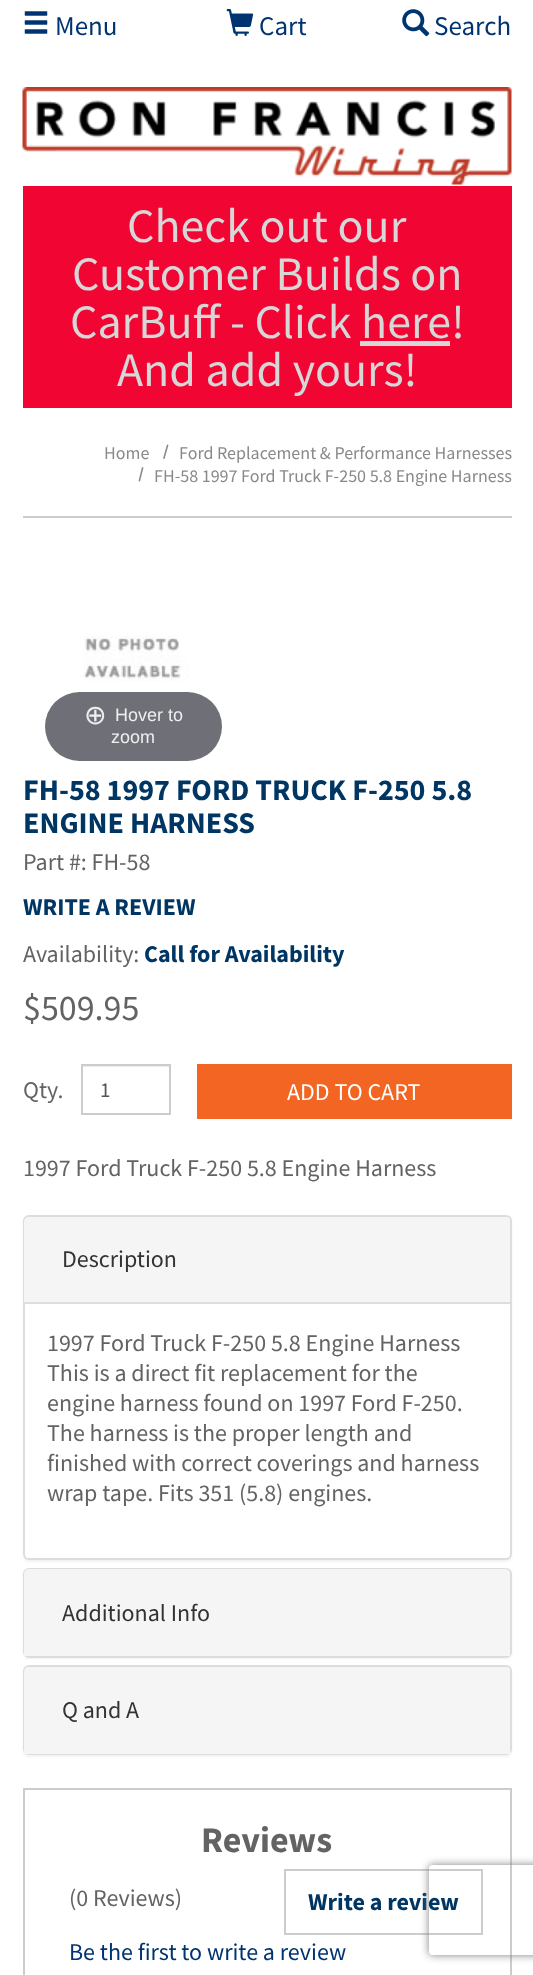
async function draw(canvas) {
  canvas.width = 533
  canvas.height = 1975
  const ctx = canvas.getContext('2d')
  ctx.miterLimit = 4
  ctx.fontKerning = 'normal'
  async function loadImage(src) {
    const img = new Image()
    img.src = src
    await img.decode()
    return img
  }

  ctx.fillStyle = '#fff'
  ctx.fillRect(0, 0, 533, 1975)
  ctx.drawImage(await loadImage('image0.png'), 24, 11, 24, 23)
  ctx.font = '27px Source Sans Pro'
  ctx.fillStyle = '#003471'
  ctx.fillText('Menu', 55, 35)
  ctx.drawImage(await loadImage('image1.png'), 226, 9, 28, 27)
  ctx.fillText('Cart', 259, 35)
  ctx.drawImage(await loadImage('image2.png'), 402, 9, 28, 28)
  ctx.fillText('Search', 434, 35)
  ctx.drawImage(await loadImage('image3.png'), 22, 87, 490, 98)
  ctx.fillStyle = '#f00533'
  ctx.fillRect(23, 186, 489, 222)
  ctx.font = '48px Source Sans Pro'
  ctx.fillStyle = '#d7d7d7'
  ctx.fillText('Check out our', 127, 242)
  ctx.fillText('Customer Builds on', 72, 290)
  ctx.fillText('CarBuff - Click here!', 70, 338)
  ctx.fillRect(360, 341, 90, 5)
  ctx.fillText('And add yours!', 117, 386)
  ctx.fillStyle = '#ccc'
  ctx.fillRect(23, 516, 489, 2)
  ctx.font = '18px Source Sans Pro'
  ctx.fillStyle = '#898989'
  ctx.fillText('Home', 104, 459)
  ctx.beginPath()
  ctx.moveTo(167, 444.5)
  ctx.lineTo(168.5, 445)
  ctx.lineTo(164.5, 459)
  ctx.lineTo(163, 458.5)
  ctx.closePath()
  ctx.moveTo(142, 467)
  ctx.lineTo(143.5, 467.5)
  ctx.lineTo(140, 481.5)
  ctx.lineTo(138.5, 481)
  ctx.closePath()
  ctx.fill()
  ctx.fillText('Ford Replacement & Performance Harnesses', 179, 459)
  ctx.fillText('FH-58 1997 Ford Truck F-250 5.8 Engine Harness', 154, 482)
  ctx.drawImage(await loadImage('image4.png'), 83, 635, 106, 47)
  ctx.fillStyle = '#6f7077'
  ctx.beginPath()
  ctx.roundRect(45, 692, 177, 69, 34.5)
  ctx.fill()
  ctx.font = '27px DejaVu Sans'
  ctx.fillStyle = '#eee'
  ctx.fillText('⊕', 84, 724)
  ctx.font = '18px Liberation Sans'
  ctx.fillText('Hover to', 115, 721)
  ctx.fillText('zoom', 111, 743)
  ctx.font = 'bold 30px Source Sans Pro'
  ctx.fillStyle = '#003663'
  ctx.fillText('FH-58 1997 FORD TRUCK F-250 5.8', 23, 800)
  ctx.fillText('ENGINE HARNESS', 23, 833)
  ctx.font = '24px Source Sans Pro'
  ctx.fillStyle = '#636363'
  ctx.fillText('Part #: FH-58', 23, 870)
  ctx.font = 'bold 24px Source Sans Pro'
  ctx.fillStyle = '#003663'
  ctx.fillText('WRITE A REVIEW', 23, 915)
  ctx.font = '24px Source Sans Pro'
  ctx.fillStyle = '#636363'
  ctx.fillText('Availability:', 23, 962)
  ctx.font = 'bold 24px Source Sans Pro'
  ctx.fillStyle = '#003663'
  ctx.fillText('Call for Availability', 144, 962)
  ctx.font = '36px Source Sans Pro'
  ctx.fillStyle = '#636363'
  ctx.fillText('$509.95', 23, 1020)
  ctx.font = '24px Source Sans Pro'
  ctx.fillText('Qty.', 23, 1098)
  ctx.fillStyle = '#ececec'
  ctx.fillRect(83, 1066, 87, 1)
  ctx.strokeStyle = '#ccc'
  ctx.lineWidth = 2
  ctx.strokeRect(82, 1065, 88, 49)
  ctx.font = '21px Source Sans Pro'
  ctx.fillStyle = '#555'
  ctx.fillText('1', 100, 1097)
  ctx.fillStyle = '#f26522'
  ctx.fillRect(197, 1064, 315, 55)
  ctx.font = '24px Source Sans Pro'
  ctx.fillStyle = '#fff'
  ctx.fillText('ADD TO CART', 287, 1100)
  ctx.fillStyle = '#636363'
  ctx.fillText('1997 Ford Truck F-250 5.8 Engine Harness', 23, 1176)
  ctx.fillStyle = '#0000000d'
  ctx.filter = 'blur(1px)'
  ctx.beginPath()
  ctx.roundRect(23, 1217, 489, 345, 6)
  ctx.fill()
  ctx.filter = 'none'
  ctx.fillStyle = '#fff'
  ctx.beginPath()
  ctx.roundRect(24, 1216, 487, 343, 5)
  ctx.fill()
  ctx.strokeStyle = '#ddd'
  ctx.stroke()
  ctx.fillStyle = '#f5f5f5'
  ctx.beginPath()
  ctx.roundRect(24, 1217, 486, 85, [5, 5, 0, 0])
  ctx.fill()
  ctx.fillStyle = '#333'
  ctx.fillText('Description', 62, 1267)
  ctx.fillStyle = '#ddd'
  ctx.fillRect(24, 1302, 486, 2)
  ctx.fillStyle = '#636363'
  ctx.fillText('1997 Ford Truck F-250 5.8 Engine Harness', 47, 1351)
  ctx.fillText('This is a direct fit replacement for the', 47, 1381)
  ctx.fillText('engine harness found on 1997 Ford F-250.', 47, 1411)
  ctx.fillText('The harness is the proper length and', 47, 1441)
  ctx.fillText('finished with correct coverings and harness', 47, 1471)
  ctx.fillText('wrap tape. Fits 351 (5.8) engines.', 47, 1501)
  ctx.fillStyle = '#0000000d'
  ctx.filter = 'blur(1px)'
  ctx.beginPath()
  ctx.roundRect(23, 1569, 489, 90, 6)
  ctx.fill()
  ctx.filter = 'none'
  ctx.beginPath()
  ctx.roundRect(24, 1569, 487, 88, 5)
  ctx.stroke()
  ctx.fillStyle = '#f5f5f5'
  ctx.beginPath()
  ctx.roundRect(24, 1569, 486, 87, [5, 5, 0, 0])
  ctx.fill()
  ctx.fillStyle = '#333'
  ctx.fillText('Additional Info', 62, 1621)
  ctx.fillStyle = '#0000000d'
  ctx.filter = 'blur(1px)'
  ctx.beginPath()
  ctx.roundRect(23, 1667, 489, 90, 6)
  ctx.fill()
  ctx.filter = 'none'
  ctx.fillStyle = '#fff'
  ctx.beginPath()
  ctx.roundRect(24, 1666, 487, 88, 5)
  ctx.fill()
  ctx.stroke()
  ctx.fillStyle = '#f5f5f5'
  ctx.beginPath()
  ctx.roundRect(24, 1667, 486, 87, [5, 5, 0, 0])
  ctx.fill()
  ctx.fillStyle = '#333'
  ctx.fillText('Q and A', 62, 1718)
  ctx.strokeStyle = '#ccc'
  ctx.strokeRect(24, 1789, 487, 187)
  ctx.font = 'bold 36px Source Sans Pro'
  ctx.fillStyle = '#636363'
  ctx.fillText('Reviews', 201, 1852)
  ctx.font = '24px Source Sans Pro'
  ctx.fillText('(0 Reviews)', 69, 1906)
  ctx.strokeRect(285, 1870, 197, 64)
  ctx.font = 'bold 24px Source Sans Pro'
  ctx.fillStyle = '#003663'
  ctx.fillText('Write a review', 308, 1910)
  ctx.font = '24px Source Sans Pro'
  ctx.fillStyle = '#003471'
  ctx.fillText('Be the first to write a review', 69, 1960)
  ctx.save()
  ctx.beginPath()
  ctx.moveTo(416, 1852)
  ctx.lineTo(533, 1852)
  ctx.lineTo(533, 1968)
  ctx.lineTo(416, 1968)
  ctx.closePath()
  ctx.moveTo(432, 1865)
  ctx.lineTo(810, 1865)
  ctx.bezierCurveTo(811.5, 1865, 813, 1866.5, 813, 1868)
  ctx.lineTo(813, 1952)
  ctx.bezierCurveTo(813, 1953.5, 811.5, 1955, 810, 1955)
  ctx.lineTo(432, 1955)
  ctx.bezierCurveTo(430.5, 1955, 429, 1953.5, 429, 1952)
  ctx.lineTo(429, 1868)
  ctx.bezierCurveTo(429, 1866.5, 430.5, 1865, 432, 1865)
  ctx.closePath()
  ctx.clip('evenodd')
  ctx.fillStyle = '#808080'
  ctx.filter = 'blur(4px)'
  ctx.beginPath()
  ctx.roundRect(429, 1865, 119, 90, 3)
  ctx.fill()
  ctx.filter = 'none'
  ctx.restore()
}

draw(document.querySelector('canvas'))
